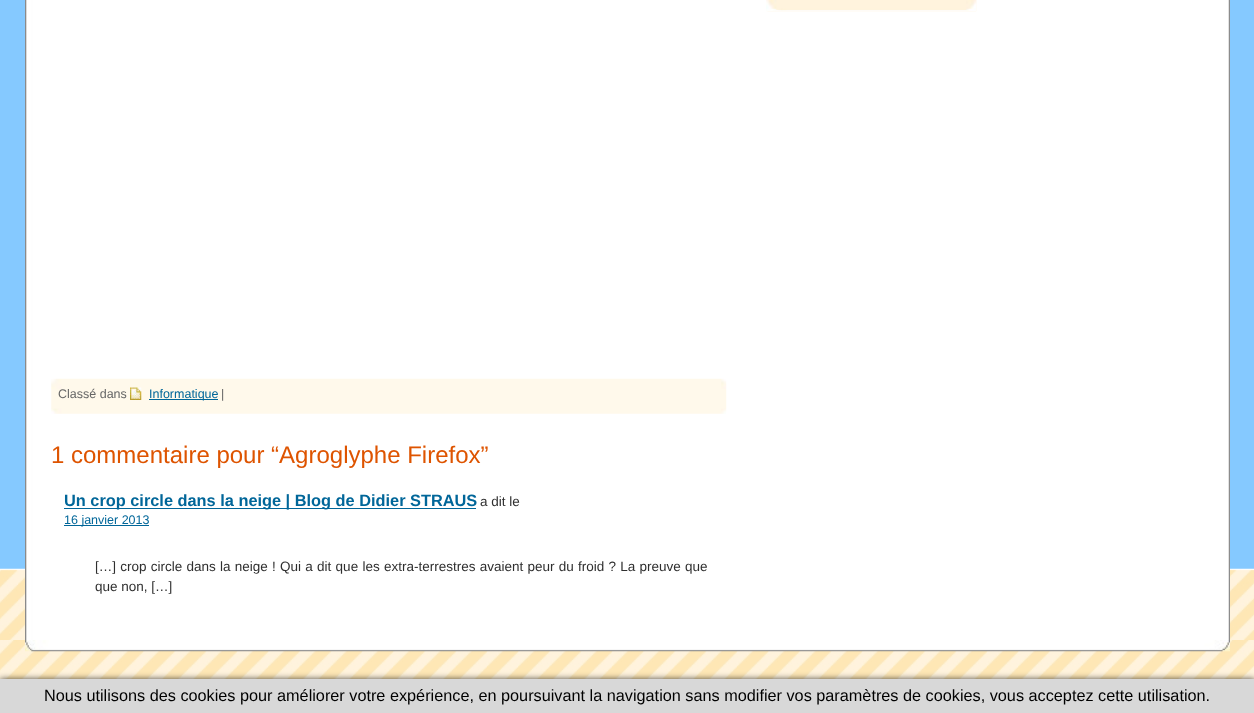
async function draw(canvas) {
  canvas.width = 1254
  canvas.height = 713
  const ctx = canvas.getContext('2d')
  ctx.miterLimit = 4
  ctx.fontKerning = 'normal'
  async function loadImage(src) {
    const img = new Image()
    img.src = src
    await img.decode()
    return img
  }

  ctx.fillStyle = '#85c9ff'
  ctx.fillRect(0, 0, 1254, 713)
  ctx.drawImage(await loadImage('image0.png'), 0, 568, 1254, 72)
  ctx.drawImage(await loadImage('image1.png'), 25, 0, 1205, 640)
  ctx.drawImage(await loadImage('image2.png'), 766, 0, 211, 12)
  ctx.drawImage(await loadImage('image3.png'), 766, 0, 211, 11)
  ctx.drawImage(await loadImage('image4.png'), 51, 378, 676, 36)
  ctx.font = '12.5px Liberation Sans'
  ctx.fillStyle = '#666'
  ctx.fillText('Classé dans', 58, 398)
  ctx.drawImage(await loadImage('image5.png'), 130, 387, 12, 13)
  ctx.fillStyle = '#069'
  ctx.fillRect(149, 399, 69, 1)
  ctx.fillText('Informatique', 149, 398)
  ctx.fillStyle = '#666'
  ctx.fillText('|', 221, 398)
  ctx.font = '24px Liberation Sans'
  ctx.fillStyle = '#de5400'
  ctx.fillText('1 commentaire pour “Agroglyphe Firefox”', 51, 463)
  ctx.fillStyle = '#069'
  ctx.fillRect(64, 508, 412, 1)
  ctx.font = 'bold 16.35px Liberation Sans'
  ctx.fillText('Un crop circle dans la neige | Blog de Didier STRAUS', 64, 506)
  ctx.font = '13.5px Liberation Sans'
  ctx.fillStyle = '#2f2f2f'
  ctx.fillText('a dit le', 480, 506)
  ctx.fillStyle = '#069'
  ctx.fillRect(64, 525, 85, 1)
  ctx.font = '12.5px Liberation Sans'
  ctx.fillText('16 janvier 2013', 64, 524)
  ctx.wordSpacing = '0.5px'
  ctx.font = '13.5px Liberation Sans'
  ctx.fillStyle = '#2f2f2f'
  ctx.fillText('[…] crop circle dans la neige ! Qui a dit que les extra-terrestres avaient peur du froid ? La preuve que', 95, 571)
  ctx.wordSpacing = '0px'
  ctx.fillText('que non, […]', 95, 591)
  ctx.drawImage(await loadImage('image6.png'), 0, 640, 1254, 39)
  ctx.drawImage(await loadImage('image7.png'), 25, 640, 1205, 12)
  ctx.fillStyle = '#000000b3'
  ctx.filter = 'blur(3px)'
  ctx.beginPath()
  ctx.rect(0, 679, 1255, 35)
  ctx.fill()
  ctx.filter = 'none'
  ctx.fillStyle = '#d8d8d8'
  ctx.fillRect(0, 679, 1254, 34)
  ctx.font = '16.25px Liberation Sans'
  ctx.fillStyle = '#000'
  ctx.fillText('Nous utilisons des cookies pour améliorer votre expérience, en poursuivant la navigation sans modifier vos paramètres de cookies, vous acceptez cette utilisation.', 44, 701)
}

draw(document.querySelector('canvas'))
